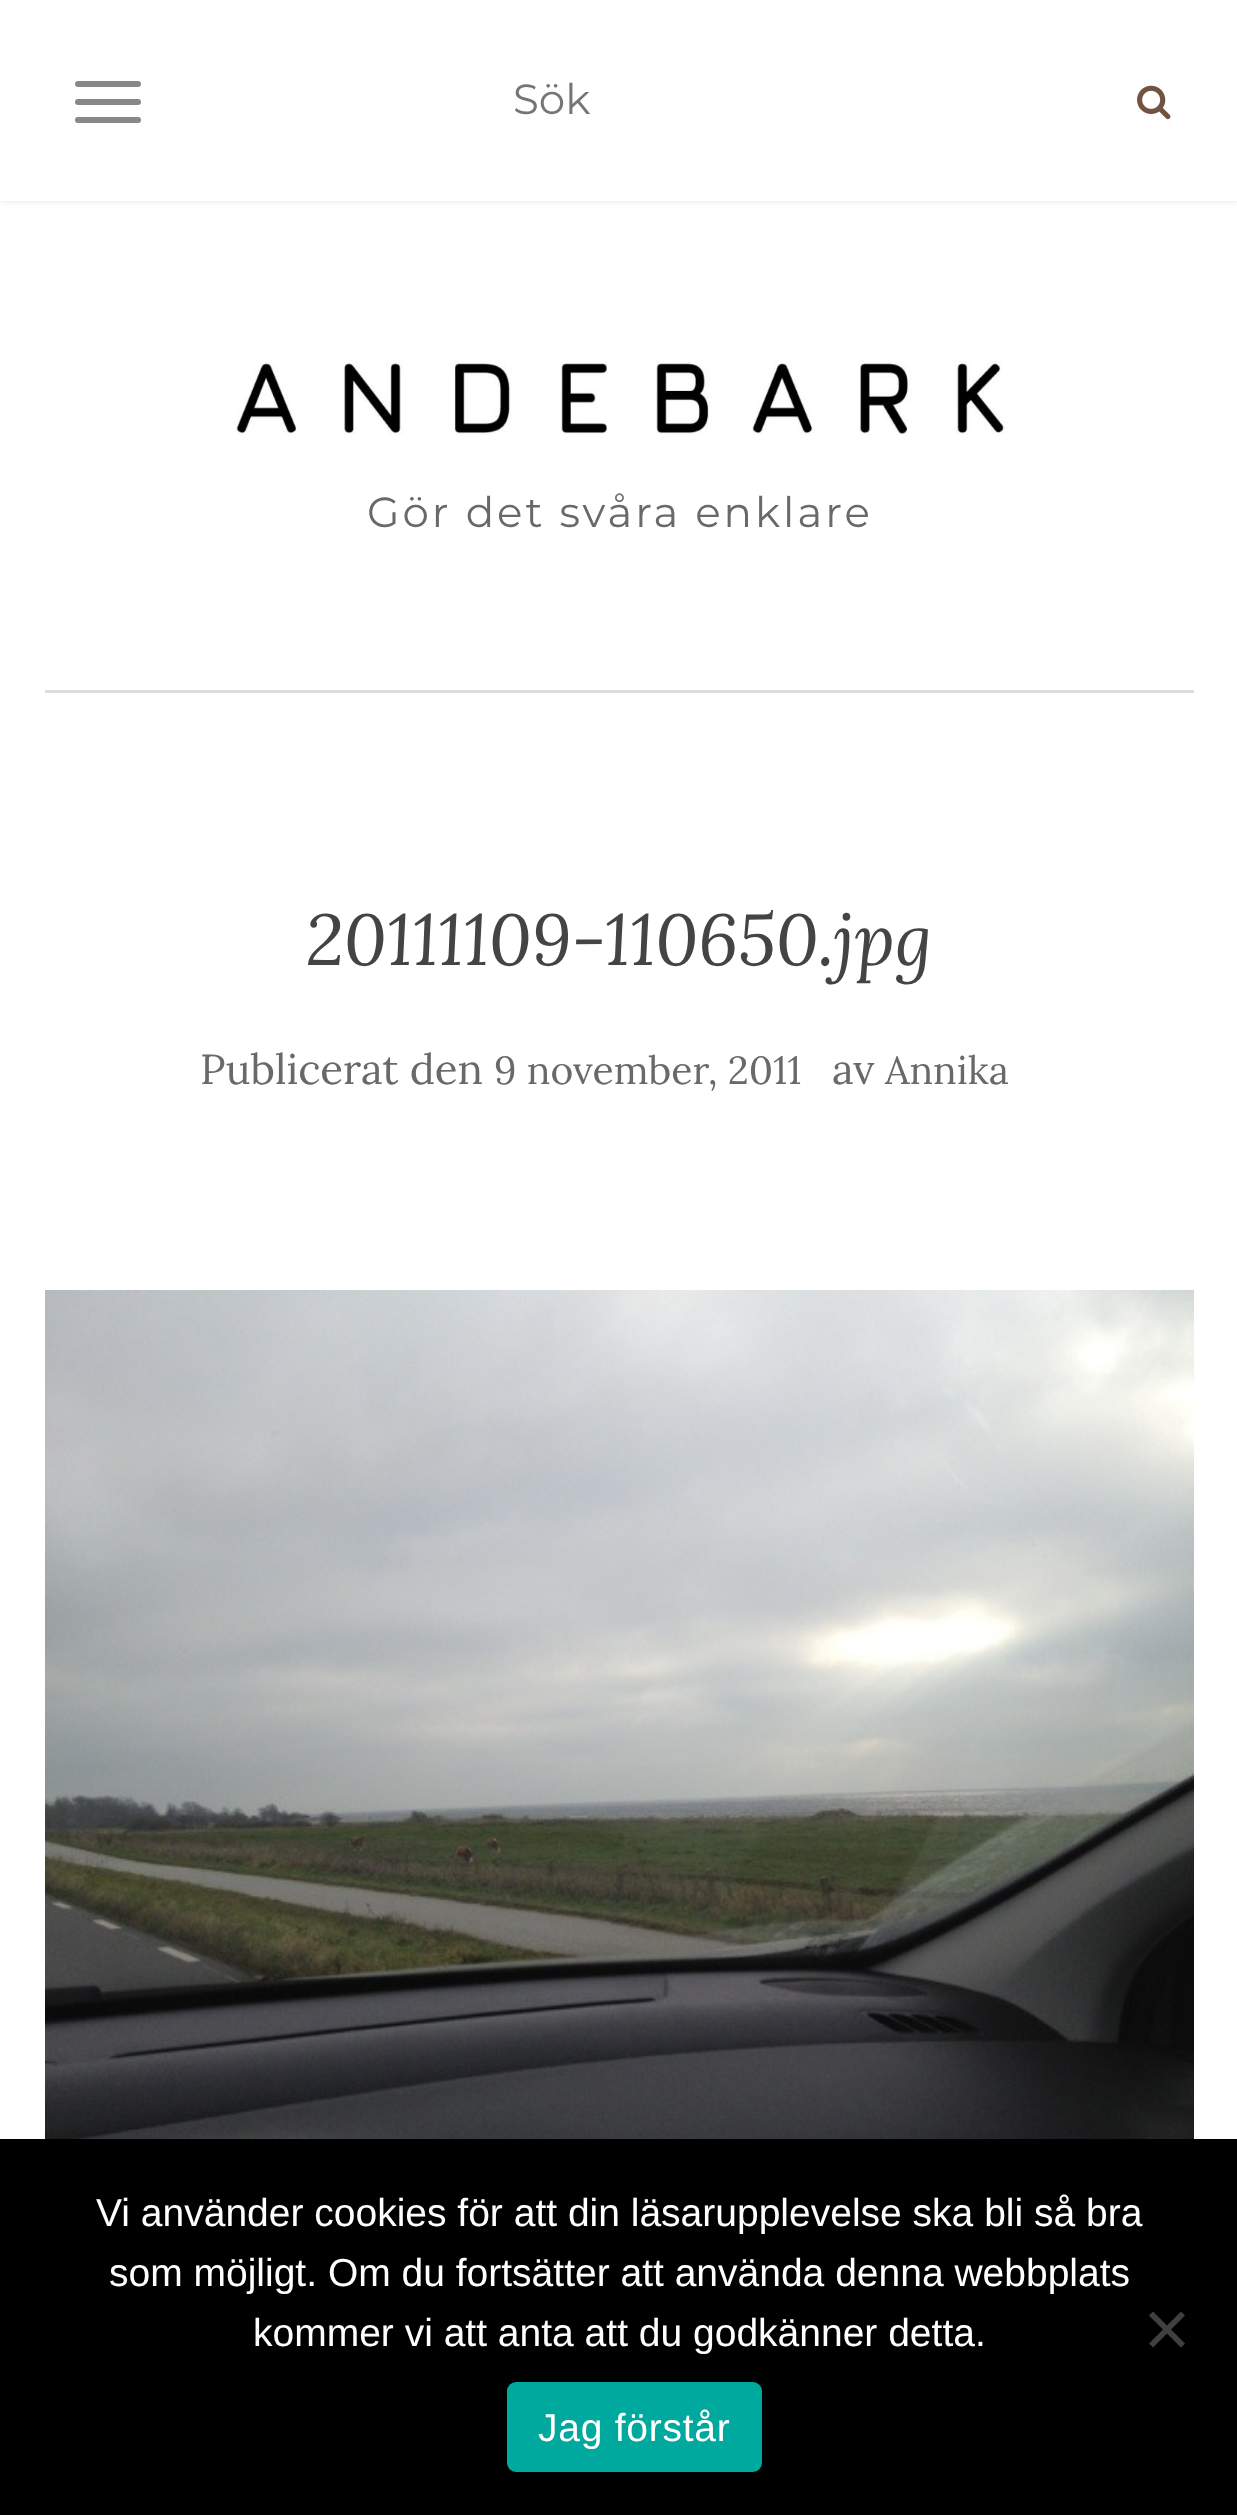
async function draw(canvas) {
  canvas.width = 1237
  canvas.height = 2515
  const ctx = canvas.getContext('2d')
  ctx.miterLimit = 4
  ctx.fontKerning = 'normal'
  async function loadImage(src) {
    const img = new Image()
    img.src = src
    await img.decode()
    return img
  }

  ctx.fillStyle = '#fff'
  ctx.fillRect(0, 0, 1237, 2515)
  ctx.save()
  ctx.beginPath()
  ctx.rect(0, 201, 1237, 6)
  ctx.clip()
  ctx.fillStyle = '#e3e3e3'
  ctx.filter = 'blur(3px)'
  ctx.beginPath()
  ctx.rect(0, 0, 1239, 201)
  ctx.fill()
  ctx.filter = 'none'
  ctx.restore()
  ctx.fillStyle = '#888'
  ctx.beginPath()
  ctx.roundRect(75, 81, 66, 6, 3)
  ctx.fill()
  ctx.beginPath()
  ctx.roundRect(75, 99, 66, 6, 3)
  ctx.fill()
  ctx.beginPath()
  ctx.roundRect(75, 117, 66, 6, 3)
  ctx.fill()
  ctx.font = '42px Montserrat'
  ctx.fillStyle = '#757575'
  ctx.fillText('Sök', 513, 114)
  ctx.drawImage(await loadImage('image0.png'), 1137, 85, 34, 35)
  ctx.drawImage(await loadImage('image1.png'), 236, 360, 772, 75)
  ctx.letterSpacing = '3px'
  ctx.fillStyle = '#696969'
  ctx.fillText('Gör det svåra enklare', 367, 527)
  ctx.fillStyle = '#ddd'
  ctx.fillRect(45, 690, 1149, 3)
  ctx.letterSpacing = '0px'
  ctx.font = 'italic 72px Lora'
  ctx.fillStyle = '#444'
  ctx.fillText('20111109-110650.jpg', 306, 965)
  ctx.font = '42px Lora'
  ctx.fillStyle = '#696969'
  ctx.fillText('Publicerat den', 200, 1084)
  ctx.font = '39px Lora'
  ctx.fillText('9 november, 2011', 494, 1084)
  ctx.font = '42px Lora'
  ctx.fillText('av', 832, 1084)
  ctx.font = '39px Lora'
  ctx.fillText('Annika', 885, 1084)
  ctx.drawImage(await loadImage('image2.png'), 45, 1290, 1149, 849)
  ctx.fillStyle = '#000'
  ctx.fillRect(0, 2139, 1237, 376)
  ctx.font = '39px Liberation Sans'
  ctx.fillStyle = '#fff'
  ctx.fillText('Vi använder cookies för att din läsarupplevelse ska bli så bra', 96, 2226)
  ctx.fillText('som möjligt. Om du fortsätter att använda denna webbplats', 109, 2286)
  ctx.fillText('kommer vi att anta att du godkänner detta.', 253, 2346)
  ctx.fillStyle = '#404040'
  ctx.beginPath()
  ctx.moveTo(1181, 2311.5)
  ctx.lineTo(1185, 2315.5)
  ctx.lineTo(1153, 2347.5)
  ctx.lineTo(1149, 2343.5)
  ctx.closePath()
  ctx.fill()
  ctx.beginPath()
  ctx.moveTo(1149, 2315.5)
  ctx.lineTo(1153, 2311.5)
  ctx.lineTo(1185, 2343.5)
  ctx.lineTo(1181, 2347.5)
  ctx.closePath()
  ctx.fill()
  ctx.fillStyle = '#00a99d'
  ctx.beginPath()
  ctx.roundRect(507, 2382, 255, 90, 9)
  ctx.fill()
  ctx.letterSpacing = '0.75px'
  ctx.fillStyle = '#fff'
  ctx.fillText('Jag förstår', 538, 2441)
}

draw(document.querySelector('canvas'))
